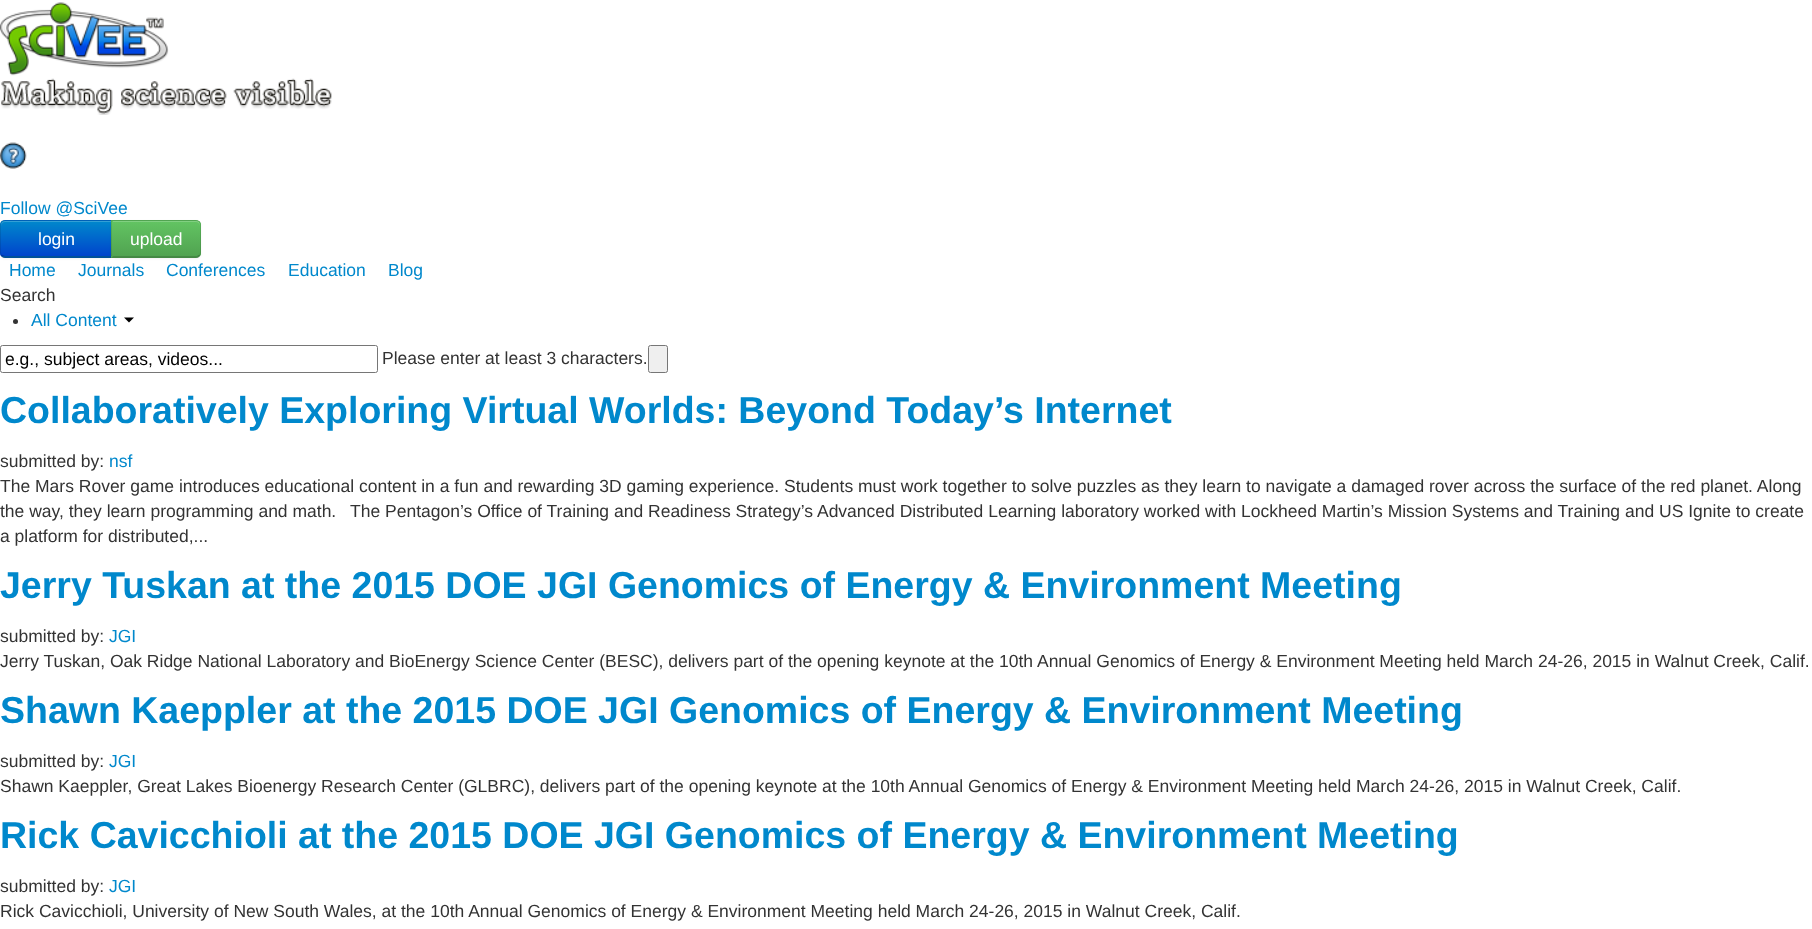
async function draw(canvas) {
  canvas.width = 1812
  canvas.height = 929
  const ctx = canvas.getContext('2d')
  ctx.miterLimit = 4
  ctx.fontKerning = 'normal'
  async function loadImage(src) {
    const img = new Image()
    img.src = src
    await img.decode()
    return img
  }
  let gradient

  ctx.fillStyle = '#fff'
  ctx.fillRect(0, 0, 1812, 929)
  ctx.drawImage(await loadImage('image0.png'), 0, 2, 169, 74)
  ctx.drawImage(await loadImage('image1.png'), 1, 78, 331, 37)
  ctx.drawImage(await loadImage('image2.png'), 0, 142, 27, 27)
  ctx.font = '17.5px Liberation Sans'
  ctx.fillStyle = '#08c'
  ctx.fillText('Follow @SciVee', 0, 214)
  ctx.fillStyle = '#0000000d'
  ctx.filter = 'blur(1px)'
  ctx.beginPath()
  ctx.roundRect(0, 221, 113, 38, 5)
  ctx.fill()
  ctx.filter = 'none'
  ctx.fillStyle = '#006dcc'
  ctx.beginPath()
  ctx.roundRect(0, 220, 113, 38, [5, 0, 0, 5])
  ctx.fill()
  ctx.save()
  ctx.beginPath()
  ctx.roundRect(0, 220, 113, 38, [5, 0, 0, 5])
  ctx.clip()
  gradient = ctx.createLinearGradient(56, 221, 56, 256)
  gradient.addColorStop(0, '#08c')
  gradient.addColorStop(1, '#04c')
  ctx.fillStyle = gradient
  ctx.fillRect(0, 221, 111, 35)
  ctx.restore()
  ctx.fillStyle = '#ffffff33'
  ctx.beginPath()
  ctx.moveTo(5, 222)
  ctx.lineTo(111, 222)
  ctx.lineTo(111, 221)
  ctx.lineTo(5, 221)
  ctx.bezierCurveTo(3, 221, 1, 223, 1, 225)
  ctx.lineTo(1, 226)
  ctx.bezierCurveTo(1, 224, 3, 222, 5, 222)
  ctx.closePath()
  ctx.fill()
  ctx.fillStyle = '#0000001a'
  ctx.beginPath()
  ctx.moveTo(5, 220)
  ctx.bezierCurveTo(4, 220, 2, 220, 1, 221)
  ctx.lineTo(2, 222)
  ctx.lineTo(5, 221)
  ctx.lineTo(111, 221)
  ctx.lineTo(111, 222)
  ctx.lineTo(112, 220)
  ctx.closePath()
  ctx.fill()
  ctx.fillStyle = '#00000040'
  ctx.beginPath()
  ctx.moveTo(3, 258)
  ctx.lineTo(1, 256)
  ctx.lineTo(2, 255)
  ctx.lineTo(5, 256)
  ctx.lineTo(111, 256)
  ctx.lineTo(112, 257)
  ctx.lineTo(112, 258)
  ctx.closePath()
  ctx.fill()
  ctx.fillStyle = '#0000001a'
  ctx.beginPath()
  ctx.moveTo(0, 225)
  ctx.lineTo(0, 252)
  ctx.bezierCurveTo(0, 253.5, 0.5, 255, 1.5, 256)
  ctx.lineTo(2.5, 255)
  ctx.bezierCurveTo(1.5, 254.5, 1, 253.5, 1, 252)
  ctx.lineTo(1, 225)
  ctx.bezierCurveTo(1, 224, 1.5, 223, 2, 222)
  ctx.lineTo(1.5, 221.5)
  ctx.bezierCurveTo(0.5, 222, 0, 223.5, 0, 225)
  ctx.closePath()
  ctx.fill()
  ctx.fillStyle = '#fff'
  ctx.fillText('login', 38, 245)
  ctx.fillStyle = '#0000000d'
  ctx.filter = 'blur(1px)'
  ctx.beginPath()
  ctx.roundRect(111, 221, 90, 38, 5)
  ctx.fill()
  ctx.filter = 'none'
  ctx.fillStyle = '#5bb75b'
  ctx.beginPath()
  ctx.roundRect(111, 220, 90, 38, [0, 5, 5, 0])
  ctx.fill()
  ctx.save()
  ctx.beginPath()
  ctx.roundRect(111, 220, 90, 38, [0, 5, 5, 0])
  ctx.clip()
  gradient = ctx.createLinearGradient(156, 221, 156, 256)
  gradient.addColorStop(0, '#62c462')
  gradient.addColorStop(1, '#51a351')
  ctx.fillStyle = gradient
  ctx.fillRect(111, 221, 90, 35)
  ctx.restore()
  ctx.fillStyle = '#81d081'
  ctx.beginPath()
  ctx.moveTo(113, 221)
  ctx.lineTo(113, 222)
  ctx.lineTo(196, 222)
  ctx.bezierCurveTo(198, 222, 200, 224, 200, 226)
  ctx.bezierCurveTo(200, 223, 199, 221, 196, 221)
  ctx.closePath()
  ctx.fill()
  ctx.fillStyle = '#0000001a'
  ctx.beginPath()
  ctx.moveTo(111, 220)
  ctx.lineTo(112, 221)
  ctx.lineTo(196, 221)
  ctx.lineTo(199, 222)
  ctx.lineTo(200, 222)
  ctx.bezierCurveTo(199, 221, 198, 220, 196, 220)
  ctx.closePath()
  ctx.fill()
  ctx.beginPath()
  ctx.moveTo(199.5, 221.5)
  ctx.bezierCurveTo(200.5, 222.5, 201, 223.5, 201, 225)
  ctx.lineTo(201, 252)
  ctx.bezierCurveTo(201, 253.5, 200.5, 255, 199.5, 256)
  ctx.lineTo(199, 255)
  ctx.bezierCurveTo(199.5, 254.5, 200, 253.5, 200, 252)
  ctx.lineTo(200, 225)
  ctx.bezierCurveTo(200, 224, 199.5, 223, 199, 222.5)
  ctx.closePath()
  ctx.fill()
  ctx.fillStyle = '#00000040'
  ctx.beginPath()
  ctx.moveTo(200, 256)
  ctx.lineTo(198, 258)
  ctx.lineTo(111, 258)
  ctx.lineTo(113, 256)
  ctx.lineTo(197, 256)
  ctx.lineTo(199, 255)
  ctx.closePath()
  ctx.fill()
  ctx.fillStyle = '#0000001a'
  ctx.beginPath()
  ctx.moveTo(112, 221)
  ctx.lineTo(111, 220)
  ctx.lineTo(111, 257.5)
  ctx.lineTo(113, 256)
  ctx.lineTo(112, 256)
  ctx.closePath()
  ctx.fill()
  ctx.fillStyle = '#fff'
  ctx.fillText('upload', 130, 245)
  ctx.fillStyle = '#08c'
  ctx.fillText('Home', 9, 276)
  ctx.fillText('Journals', 78, 276)
  ctx.fillText('Conferences', 166, 276)
  ctx.fillText('Education', 288, 276)
  ctx.fillText('Blog', 388, 276)
  ctx.fillStyle = '#333'
  ctx.fillText('Search', 0, 301)
  ctx.beginPath()
  ctx.arc(15.5, 321.5, 2.5, 0, 2 * Math.PI)
  ctx.fill()
  ctx.fillStyle = '#08c'
  ctx.fillText('All Content', 31, 326)
  ctx.fillStyle = '#000'
  ctx.beginPath()
  ctx.moveTo(124, 317.5)
  ctx.lineTo(134, 317.5)
  ctx.lineTo(129, 322.5)
  ctx.closePath()
  ctx.fill()
  ctx.beginPath()
  ctx.roundRect(0.5, 345.5, 377, 27, 2)
  ctx.strokeStyle = '#767676'
  ctx.stroke()
  ctx.fillText('e.g., subject areas, videos...', 5, 365)
  ctx.fillStyle = '#333'
  ctx.fillText('Please enter at least 3 characters.', 382, 364)
  ctx.fillStyle = '#efefef'
  ctx.beginPath()
  ctx.roundRect(648.5, 345.5, 19, 27, 2)
  ctx.fill()
  ctx.stroke()
  ctx.font = 'bold 37.5px Liberation Sans'
  ctx.fillStyle = '#08c'
  ctx.fillText('Collaboratively Exploring Virtual Worlds: Beyond Today’s Internet', 0, 423)
  ctx.font = '17.5px Liberation Sans'
  ctx.fillStyle = '#333'
  ctx.fillText('submitted by:', 0, 467)
  ctx.fillStyle = '#08c'
  ctx.fillText('nsf', 109, 467)
  ctx.fillStyle = '#333'
  ctx.fillText('The Mars Rover game introduces educational content in a fun and rewarding 3D gaming experience. Students must work together to solve puzzles as they learn to navigate a damaged rover across the surface of the red planet. Along', 0, 492)
  ctx.fillText('the way, they learn programming and math.', 0, 517)
  ctx.fillText('The Pentagon’s Office of Training and Readiness Strategy’s Advanced Distributed Learning laboratory worked with Lockheed Martin’s Mission Systems and Training and US Ignite to create', 350, 517)
  ctx.fillText('a platform for distributed,...', 0, 542)
  ctx.font = 'bold 37.5px Liberation Sans'
  ctx.fillStyle = '#08c'
  ctx.fillText('Jerry Tuskan at the 2015 DOE JGI Genomics of Energy & Environment Meeting', 0, 598)
  ctx.font = '17.5px Liberation Sans'
  ctx.fillStyle = '#333'
  ctx.fillText('submitted by:', 0, 642)
  ctx.fillStyle = '#08c'
  ctx.fillText('JGI', 109, 642)
  ctx.fillStyle = '#333'
  ctx.fillText('Jerry Tuskan, Oak Ridge National Laboratory and BioEnergy Science Center (BESC), delivers part of the opening keynote at the 10th Annual Genomics of Energy & Environment Meeting held March 24-26, 2015 in Walnut Creek, Calif.', 0, 667)
  ctx.font = 'bold 37.5px Liberation Sans'
  ctx.fillStyle = '#08c'
  ctx.fillText('Shawn Kaeppler at the 2015 DOE JGI Genomics of Energy & Environment Meeting', 0, 723)
  ctx.font = '17.5px Liberation Sans'
  ctx.fillStyle = '#333'
  ctx.fillText('submitted by:', 0, 767)
  ctx.fillStyle = '#08c'
  ctx.fillText('JGI', 109, 767)
  ctx.fillStyle = '#333'
  ctx.fillText('Shawn Kaeppler, Great Lakes Bioenergy Research Center (GLBRC), delivers part of the opening keynote at the 10th Annual Genomics of Energy & Environment Meeting held March 24-26, 2015 in Walnut Creek, Calif.', 0, 792)
  ctx.font = 'bold 37.5px Liberation Sans'
  ctx.fillStyle = '#08c'
  ctx.fillText('Rick Cavicchioli at the 2015 DOE JGI Genomics of Energy & Environment Meeting', 0, 848)
  ctx.font = '17.5px Liberation Sans'
  ctx.fillStyle = '#333'
  ctx.fillText('submitted by:', 0, 892)
  ctx.fillStyle = '#08c'
  ctx.fillText('JGI', 109, 892)
  ctx.fillStyle = '#333'
  ctx.fillText('Rick Cavicchioli, University of New South Wales, at the 10th Annual Genomics of Energy & Environment Meeting held March 24-26, 2015 in Walnut Creek, Calif.', 0, 917)
}

draw(document.querySelector('canvas'))
